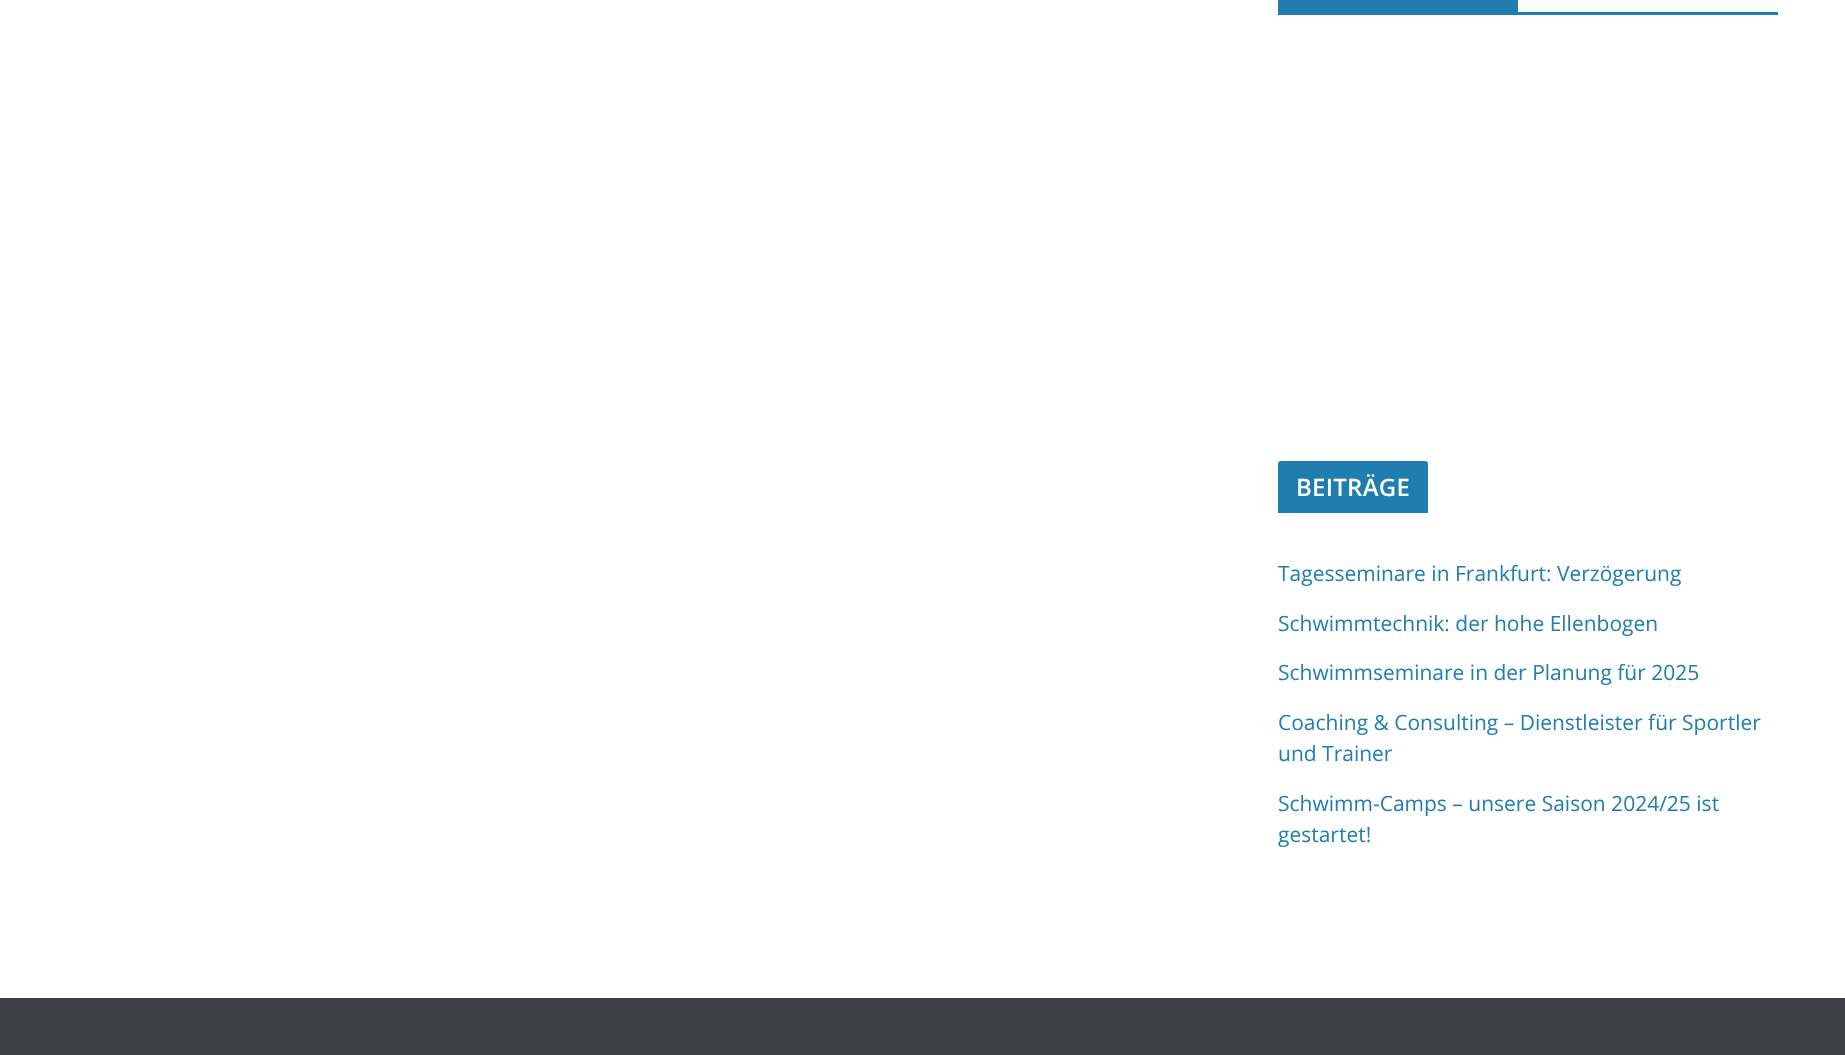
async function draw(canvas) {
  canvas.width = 1845
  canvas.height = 1055
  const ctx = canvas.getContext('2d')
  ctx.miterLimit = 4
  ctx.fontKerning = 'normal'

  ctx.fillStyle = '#fff'
  ctx.fillRect(0, 0, 1845, 1055)
  ctx.fillStyle = '#207daf'
  ctx.fillRect(1278, 12, 500, 3)
  ctx.fillRect(1278, 0, 240, 12)
  ctx.beginPath()
  ctx.roundRect(1278, 461, 150, 52, [3, 3, 0, 0])
  ctx.fill()
  ctx.letterSpacing = '0.25px'
  ctx.font = '600 24px Open Sans'
  ctx.fillStyle = '#fff'
  ctx.fillText('BEITRÄGE', 1296, 496)
  ctx.letterSpacing = '0px'
  ctx.font = '21px Open Sans'
  ctx.fillStyle = '#207daf'
  ctx.fillText('Tagesseminare in Frankfurt: Verzögerung', 1278, 581)
  ctx.fillText('Schwimmtechnik: der hohe Ellenbogen', 1278, 631)
  ctx.fillText('Schwimmseminare in der Planung für 2025', 1278, 680)
  ctx.fillText('Coaching & Consulting – Dienstleister für Sportler', 1278, 730)
  ctx.fillText('und Trainer', 1278, 761)
  ctx.fillText('Schwimm-Camps – unsere Saison 2024/25 ist', 1278, 811)
  ctx.fillText('gestartet!', 1278, 842)
  ctx.fillStyle = '#3f3f46'
  ctx.fillRect(0, 998, 1845, 57)
}

draw(document.querySelector('canvas'))
